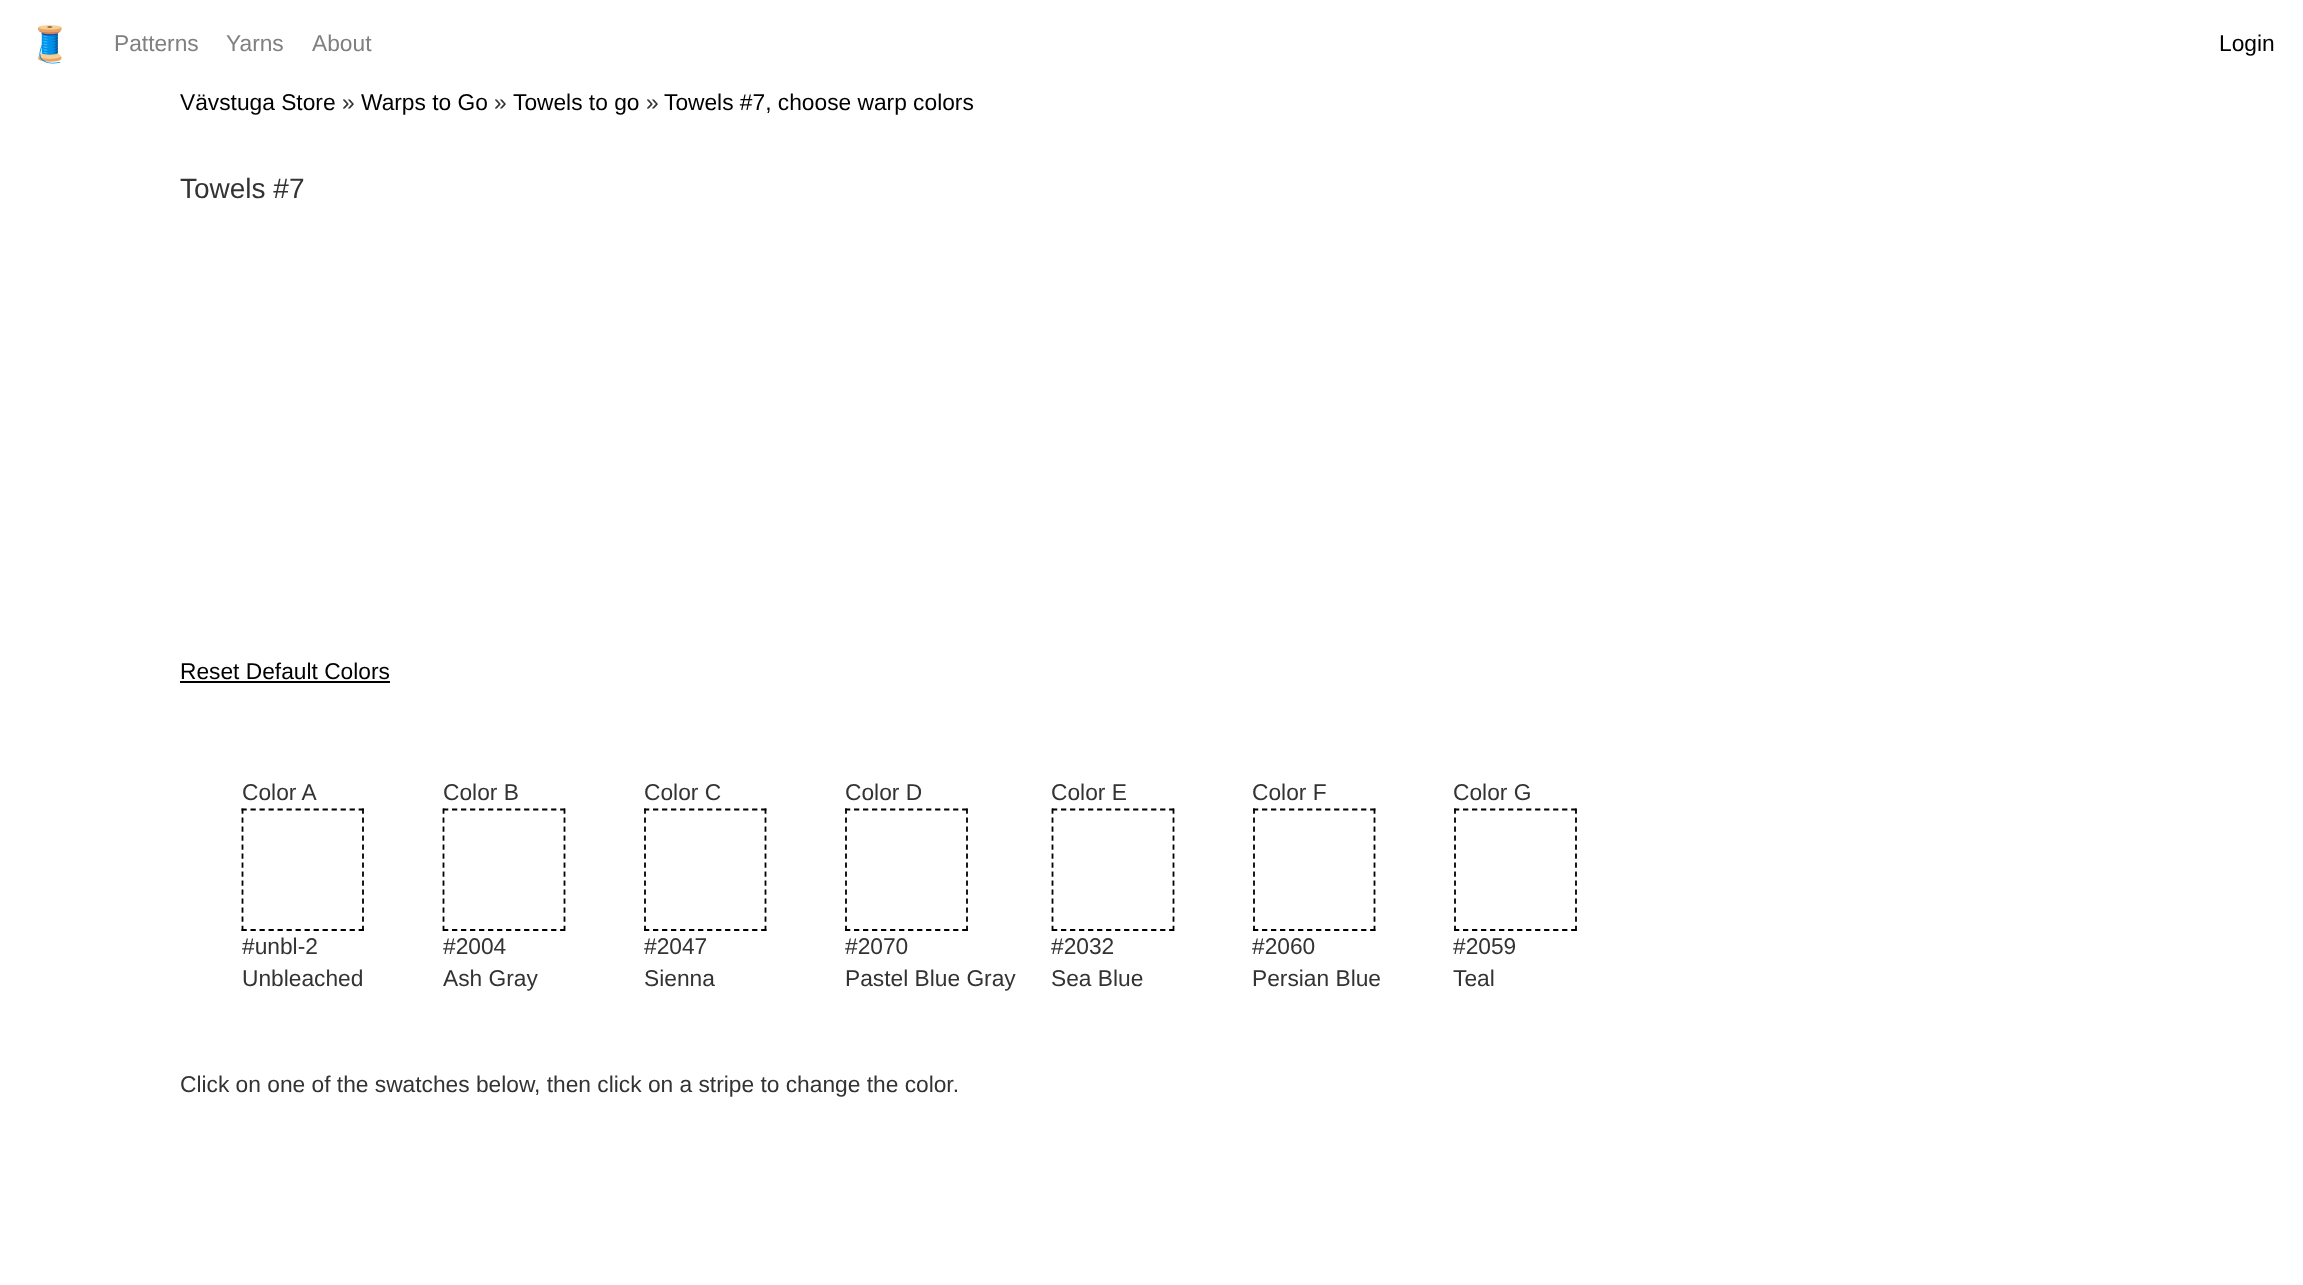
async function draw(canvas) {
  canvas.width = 2303
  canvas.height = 1285
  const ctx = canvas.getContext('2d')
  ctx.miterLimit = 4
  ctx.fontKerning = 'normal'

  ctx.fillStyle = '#fff'
  ctx.fillRect(0, 0, 2303, 1285)
  ctx.font = '35px Noto Color Emoji'
  ctx.fillStyle = '#1a1a1a'
  ctx.fillText('🧵', 28, 56)
  ctx.font = '22.75px Liberation Sans'
  ctx.fillStyle = '#808080'
  ctx.fillText('Patterns', 114, 51)
  ctx.fillText('Yarns', 226, 51)
  ctx.fillText('About', 312, 51)
  ctx.fillStyle = '#000'
  ctx.fillText('Login', 2219, 51)
  ctx.fillText('Vävstuga Store', 180, 110)
  ctx.fillStyle = '#333'
  ctx.fillText('»', 342, 110)
  ctx.fillStyle = '#000'
  ctx.fillText('Warps to Go', 361, 110)
  ctx.fillStyle = '#333'
  ctx.fillText('»', 494, 110)
  ctx.fillStyle = '#000'
  ctx.fillText('Towels to go', 513, 110)
  ctx.fillStyle = '#333'
  ctx.fillText('»', 646, 110)
  ctx.fillStyle = '#000'
  ctx.fillText('Towels #7, choose warp colors', 664, 110)
  ctx.font = '28px Liberation Sans'
  ctx.fillStyle = '#333'
  ctx.fillText('Towels #7', 180, 198)
  ctx.font = '22.75px Liberation Sans'
  ctx.fillStyle = '#000'
  ctx.fillText('Reset Default Colors', 180, 679)
  ctx.fillRect(180, 681, 210, 2)
  ctx.fillStyle = '#333'
  ctx.fillText('Color A', 242, 800)
  ctx.beginPath()
  ctx.moveTo(241.5, 809.5)
  ctx.lineTo(364, 809.5)
  ctx.strokeStyle = '#000'
  ctx.lineWidth = 1.8
  ctx.setLineDash([5.25, 3.76])
  ctx.stroke()
  ctx.beginPath()
  ctx.moveTo(363, 808.5)
  ctx.lineTo(363, 931)
  ctx.stroke()
  ctx.beginPath()
  ctx.moveTo(241.5, 930)
  ctx.lineTo(364, 930)
  ctx.stroke()
  ctx.beginPath()
  ctx.moveTo(242.5, 808.5)
  ctx.lineTo(242.5, 931)
  ctx.stroke()
  ctx.fillText('#unbl-2', 242, 954)
  ctx.fillText('Unbleached', 242, 986)
  ctx.fillText('Color B', 443, 800)
  ctx.beginPath()
  ctx.moveTo(443, 809.5)
  ctx.lineTo(565, 809.5)
  ctx.stroke()
  ctx.beginPath()
  ctx.moveTo(564.5, 808.5)
  ctx.lineTo(564.5, 931)
  ctx.stroke()
  ctx.beginPath()
  ctx.moveTo(443, 930)
  ctx.lineTo(565, 930)
  ctx.stroke()
  ctx.beginPath()
  ctx.moveTo(443.5, 808.5)
  ctx.lineTo(443.5, 931)
  ctx.stroke()
  ctx.fillText('#2004', 443, 954)
  ctx.fillText('Ash Gray', 443, 986)
  ctx.fillText('Color C', 644, 800)
  ctx.beginPath()
  ctx.moveTo(644, 809.5)
  ctx.lineTo(766.5, 809.5)
  ctx.stroke()
  ctx.beginPath()
  ctx.moveTo(765.5, 808.5)
  ctx.lineTo(765.5, 931)
  ctx.stroke()
  ctx.beginPath()
  ctx.moveTo(644, 930)
  ctx.lineTo(766.5, 930)
  ctx.stroke()
  ctx.beginPath()
  ctx.moveTo(645, 808.5)
  ctx.lineTo(645, 931)
  ctx.stroke()
  ctx.fillText('#2047', 644, 954)
  ctx.fillText('Sienna', 644, 986)
  ctx.fillText('Color D', 845, 800)
  ctx.beginPath()
  ctx.moveTo(845, 809.5)
  ctx.lineTo(968, 809.5)
  ctx.stroke()
  ctx.beginPath()
  ctx.moveTo(967, 808.5)
  ctx.lineTo(967, 931)
  ctx.stroke()
  ctx.beginPath()
  ctx.moveTo(845, 930)
  ctx.lineTo(968, 930)
  ctx.stroke()
  ctx.beginPath()
  ctx.moveTo(846, 808.5)
  ctx.lineTo(846, 931)
  ctx.stroke()
  ctx.fillText('#2070', 845, 954)
  ctx.fillText('Pastel Blue Gray', 845, 986)
  ctx.fillText('Color E', 1051, 800)
  ctx.beginPath()
  ctx.moveTo(1052, 809.5)
  ctx.lineTo(1174, 809.5)
  ctx.stroke()
  ctx.beginPath()
  ctx.moveTo(1173.5, 808.5)
  ctx.lineTo(1173.5, 931)
  ctx.stroke()
  ctx.beginPath()
  ctx.moveTo(1052, 930)
  ctx.lineTo(1174, 930)
  ctx.stroke()
  ctx.beginPath()
  ctx.moveTo(1052.5, 808.5)
  ctx.lineTo(1052.5, 931)
  ctx.stroke()
  ctx.fillText('#2032', 1051, 954)
  ctx.fillText('Sea Blue', 1051, 986)
  ctx.fillText('Color F', 1252, 800)
  ctx.beginPath()
  ctx.moveTo(1253, 809.5)
  ctx.lineTo(1375.5, 809.5)
  ctx.stroke()
  ctx.beginPath()
  ctx.moveTo(1374.5, 808.5)
  ctx.lineTo(1374.5, 931)
  ctx.stroke()
  ctx.beginPath()
  ctx.moveTo(1253, 930)
  ctx.lineTo(1375.5, 930)
  ctx.stroke()
  ctx.beginPath()
  ctx.moveTo(1254, 808.5)
  ctx.lineTo(1254, 931)
  ctx.stroke()
  ctx.fillText('#2060', 1252, 954)
  ctx.fillText('Persian Blue', 1252, 986)
  ctx.fillText('Color G', 1453, 800)
  ctx.beginPath()
  ctx.moveTo(1454, 809.5)
  ctx.lineTo(1577, 809.5)
  ctx.stroke()
  ctx.beginPath()
  ctx.moveTo(1576, 808.5)
  ctx.lineTo(1576, 931)
  ctx.stroke()
  ctx.beginPath()
  ctx.moveTo(1454, 930)
  ctx.lineTo(1577, 930)
  ctx.stroke()
  ctx.beginPath()
  ctx.moveTo(1455, 808.5)
  ctx.lineTo(1455, 931)
  ctx.stroke()
  ctx.fillText('#2059', 1453, 954)
  ctx.fillText('Teal', 1453, 986)
  ctx.fillText('Click on one of the swatches below, then click on a stripe to change the color.', 180, 1092)
}

draw(document.querySelector('canvas'))
